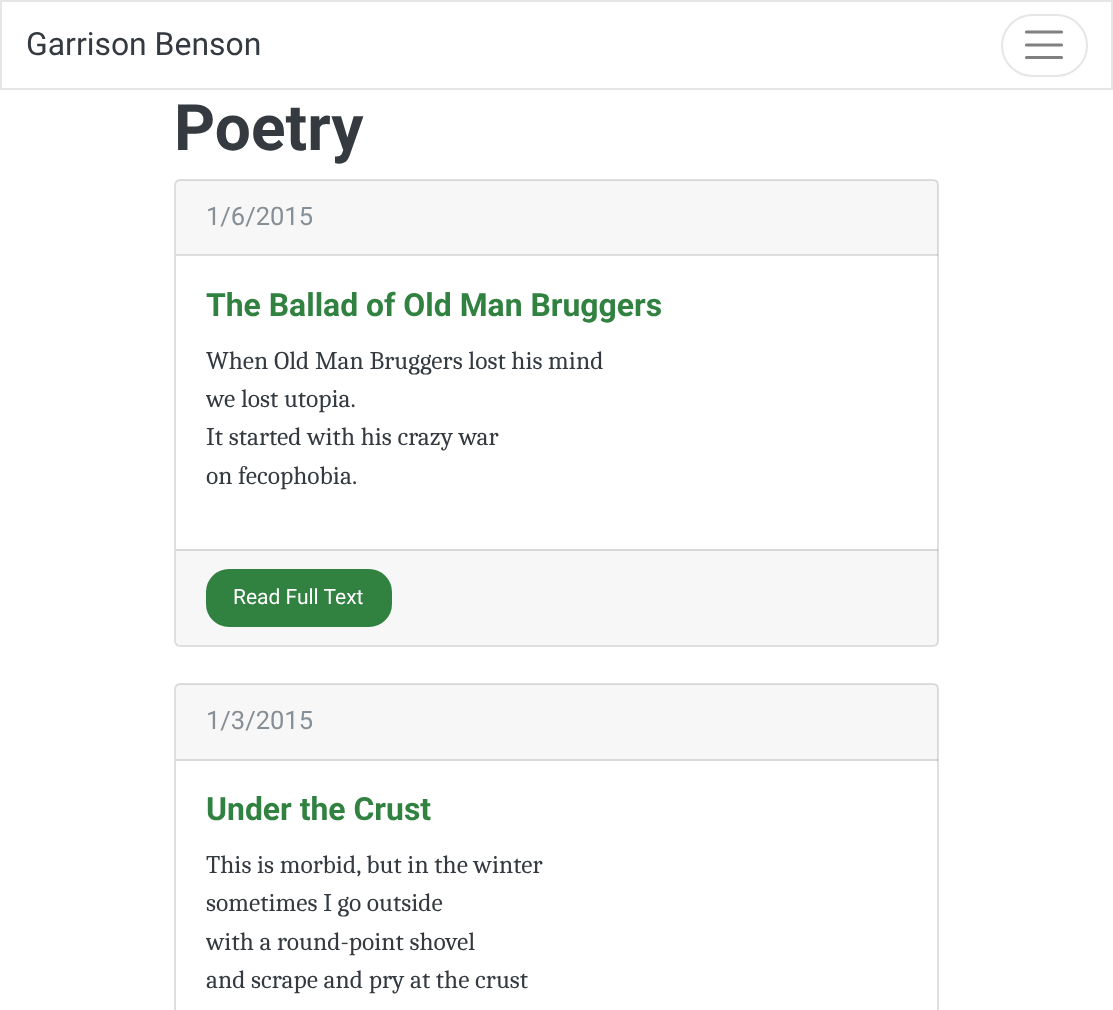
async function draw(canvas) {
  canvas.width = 1113
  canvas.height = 1010
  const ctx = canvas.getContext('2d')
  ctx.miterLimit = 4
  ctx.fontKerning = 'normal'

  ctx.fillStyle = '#fff'
  ctx.fillRect(0, 0, 1113, 1010)
  ctx.strokeStyle = '#e6e6e6'
  ctx.lineWidth = 2
  ctx.strokeRect(1, 1, 1111, 88)
  ctx.font = '31.9px Roboto'
  ctx.fillStyle = '#343a40'
  ctx.fillText('Garrison Benson', 26, 55)
  ctx.beginPath()
  ctx.roundRect(1002, 15, 85, 61, 30.5)
  ctx.stroke()
  ctx.beginPath()
  ctx.moveTo(1026.5, 32)
  ctx.lineTo(1061.5, 32)
  ctx.moveTo(1026.5, 45)
  ctx.lineTo(1061.5, 45)
  ctx.moveTo(1026.5, 57.5)
  ctx.lineTo(1061.5, 57.5)
  ctx.strokeStyle = '#808080'
  ctx.lineWidth = 3.2
  ctx.lineCap = 'round'
  ctx.stroke()
  ctx.font = 'bold 64px Roboto'
  ctx.fillText('Poetry', 174, 150)
  ctx.beginPath()
  ctx.roundRect(175, 180, 763, 466, 5)
  ctx.strokeStyle = '#dfdfdf'
  ctx.lineWidth = 2
  ctx.stroke()
  ctx.fillStyle = '#00000008'
  ctx.fillRect(176, 180, 762, 75)
  ctx.fillStyle = '#0000001f'
  ctx.fillRect(176, 254, 762, 2)
  ctx.font = '25.5px Roboto'
  ctx.fillStyle = '#868e96'
  ctx.fillText('1/6/2015', 206, 225)
  ctx.font = 'bold 31.9px Roboto'
  ctx.fillStyle = '#318241'
  ctx.fillText('The Ballad of Old Man Bruggers', 206, 316)
  ctx.font = '25.5px Caladea'
  ctx.fillStyle = '#343a40'
  ctx.fillText('When Old Man Bruggers lost his mind', 206, 369)
  ctx.save()
  ctx.beginPath()
  ctx.rect(206, 342, 702, 177)
  ctx.clip()
  ctx.fillText('we lost utopia.', 206, 407)
  ctx.restore()
  ctx.fillText('It started with his crazy war', 206, 445)
  ctx.fillText('on fecophobia.', 206, 484)
  ctx.fillStyle = '#00000008'
  ctx.fillRect(176, 549, 762, 96)
  ctx.fillStyle = '#0000001f'
  ctx.fillRect(176, 549, 762, 2)
  ctx.fillStyle = '#318241'
  ctx.beginPath()
  ctx.roundRect(207, 570, 184, 56, 22)
  ctx.fill()
  ctx.strokeStyle = '#318241'
  ctx.stroke()
  ctx.font = '21px Roboto'
  ctx.fillStyle = '#fff'
  ctx.fillText('Read Full Text', 233, 604)
  ctx.beginPath()
  ctx.roundRect(175, 684, 763, 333, 5)
  ctx.strokeStyle = '#dfdfdf'
  ctx.stroke()
  ctx.fillStyle = '#00000008'
  ctx.fillRect(176, 684, 762, 77)
  ctx.fillStyle = '#0000001f'
  ctx.fillRect(176, 759, 762, 2)
  ctx.font = '25.5px Roboto'
  ctx.fillStyle = '#868e96'
  ctx.fillText('1/3/2015', 206, 729)
  ctx.font = 'bold 31.9px Roboto'
  ctx.fillStyle = '#318241'
  ctx.fillText('Under the Crust', 206, 820)
  ctx.font = '25.5px Caladea'
  ctx.fillStyle = '#343a40'
  ctx.fillText('This is morbid, but in the winter', 206, 873)
  ctx.fillText('sometimes I go outside', 206, 911)
  ctx.save()
  ctx.beginPath()
  ctx.rect(206, 846, 702, 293)
  ctx.clip()
  ctx.fillText('with a round-point shovel', 206, 950)
  ctx.restore()
  ctx.fillText('and scrape and pry at the crust', 206, 988)
}

draw(document.querySelector('canvas'))
